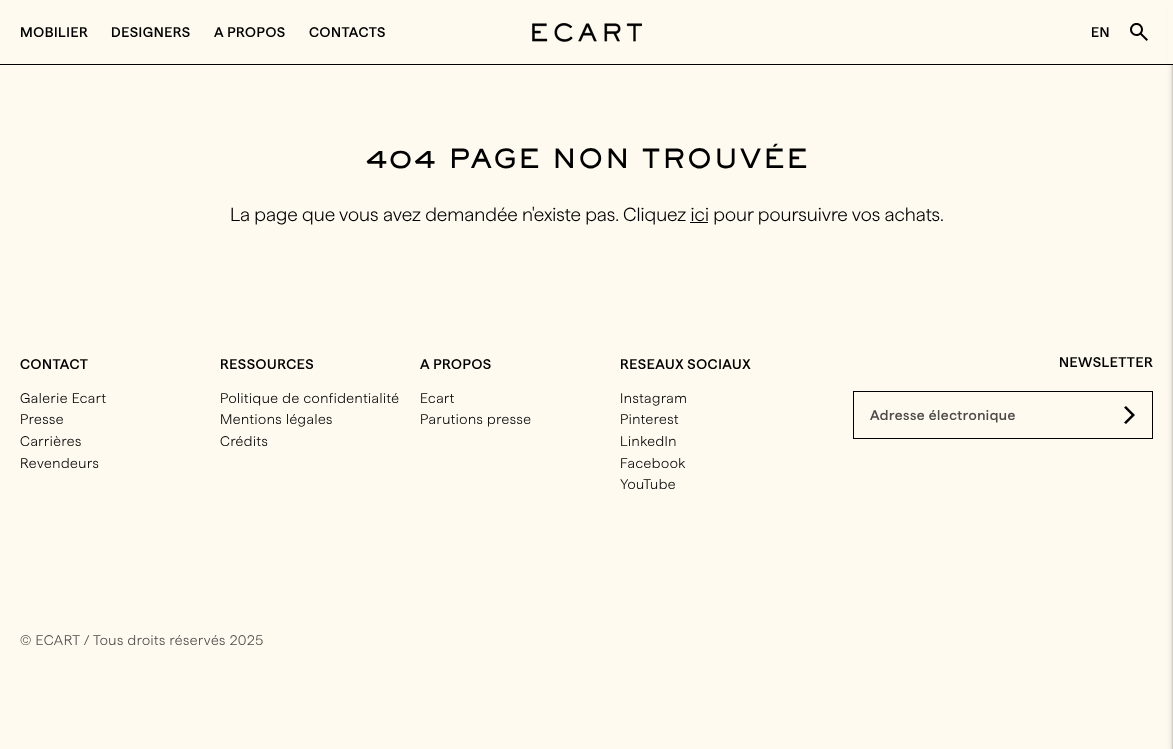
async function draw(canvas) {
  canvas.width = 1173
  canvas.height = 749
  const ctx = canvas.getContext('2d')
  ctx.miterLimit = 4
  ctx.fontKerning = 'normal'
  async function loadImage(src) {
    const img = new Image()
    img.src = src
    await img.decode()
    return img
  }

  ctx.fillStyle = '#fffaf0'
  ctx.fillRect(0, 0, 1173, 749)
  ctx.fillStyle = '#0000001a'
  ctx.filter = 'blur(3px)'
  ctx.beginPath()
  ctx.rect(1173, 4, 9, 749)
  ctx.fill()
  ctx.filter = 'none'
  ctx.fillStyle = '#00000026'
  ctx.filter = 'blur(1px)'
  ctx.beginPath()
  ctx.rect(1173, 2, 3, 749)
  ctx.fill()
  ctx.filter = 'none'
  ctx.fillStyle = '#0000001a'
  ctx.filter = 'blur(3px)'
  ctx.beginPath()
  ctx.rect(1173, 4, 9, 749)
  ctx.fill()
  ctx.filter = 'none'
  ctx.fillStyle = '#00000026'
  ctx.filter = 'blur(1px)'
  ctx.beginPath()
  ctx.rect(1173, 2, 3, 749)
  ctx.fill()
  ctx.filter = 'none'
  ctx.fillStyle = '#fffaf0'
  ctx.fillRect(1168, 0, 5, 64)
  ctx.fillStyle = '#000'
  ctx.fillRect(0, 64, 1173, 1)
  ctx.letterSpacing = '0.55px'
  ctx.font = '500 14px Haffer'
  ctx.fillText('MOBILIER', 20, 37)
  ctx.fillText('DESIGNERS', 111, 37)
  ctx.fillText('A PROPOS', 214, 37)
  ctx.fillText('CONTACTS', 309, 37)
  ctx.drawImage(await loadImage('image0.png'), 532, 23, 110, 19)
  ctx.fillText('EN', 1091, 37)
  ctx.drawImage(await loadImage('image1.png'), 1130, 23, 18, 18)
  ctx.letterSpacing = '1px'
  ctx.font = '900 26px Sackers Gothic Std'
  ctx.fillText('404 PAGE NON TROUVÉE', 365, 168)
  ctx.letterSpacing = '0px'
  ctx.font = '300 19px Haffer'
  ctx.fillText('La page que vous avez demandée n\'existe pas. Cliquez ici pour poursuivre vos achats.', 230, 221)
  ctx.fillRect(690, 222, 18, 1)
  ctx.letterSpacing = '0.55px'
  ctx.font = '500 14px Haffer'
  ctx.fillText('CONTACT', 20, 369)
  ctx.font = '300 14px Haffer'
  ctx.fillText('Galerie Ecart', 20, 403)
  ctx.fillText('Presse', 20, 424)
  ctx.fillText('Carrières', 20, 446)
  ctx.fillText('Revendeurs', 20, 468)
  ctx.font = '500 14px Haffer'
  ctx.fillText('RESSOURCES', 220, 369)
  ctx.font = '300 14px Haffer'
  ctx.fillText('Politique de confidentialité', 220, 403)
  ctx.fillText('Mentions légales', 220, 424)
  ctx.fillText('Crédits', 220, 446)
  ctx.font = '500 14px Haffer'
  ctx.fillText('A PROPOS', 420, 369)
  ctx.font = '300 14px Haffer'
  ctx.fillText('Ecart', 420, 403)
  ctx.fillText('Parutions presse', 420, 424)
  ctx.font = '500 14px Haffer'
  ctx.fillText('RESEAUX SOCIAUX', 620, 369)
  ctx.font = '300 14px Haffer'
  ctx.fillText('Instagram', 620, 403)
  ctx.fillText('Pinterest', 620, 424)
  ctx.fillText('LinkedIn', 620, 446)
  ctx.fillText('Facebook', 620, 468)
  ctx.fillText('YouTube', 620, 489)
  ctx.font = '500 14px Haffer'
  ctx.fillText('NEWSLETTER', 1059, 367)
  ctx.strokeStyle = '#000'
  ctx.strokeRect(853.5, 391.5, 299, 47)
  ctx.fillStyle = '#4d4b48'
  ctx.fillText('Adresse électronique', 870, 420)
  ctx.fillStyle = '#000'
  ctx.beginPath()
  ctx.moveTo(1126, 424)
  ctx.lineTo(1135, 415)
  ctx.lineTo(1126, 406)
  ctx.lineTo(1124, 407.5)
  ctx.lineTo(1131.5, 415)
  ctx.lineTo(1124, 422.5)
  ctx.closePath()
  ctx.fill()
  ctx.font = '300 14px Haffer'
  ctx.fillStyle = '#4d4b48'
  ctx.fillText('© ECART / Tous droits réservés 2025', 20, 645)
}

draw(document.querySelector('canvas'))
